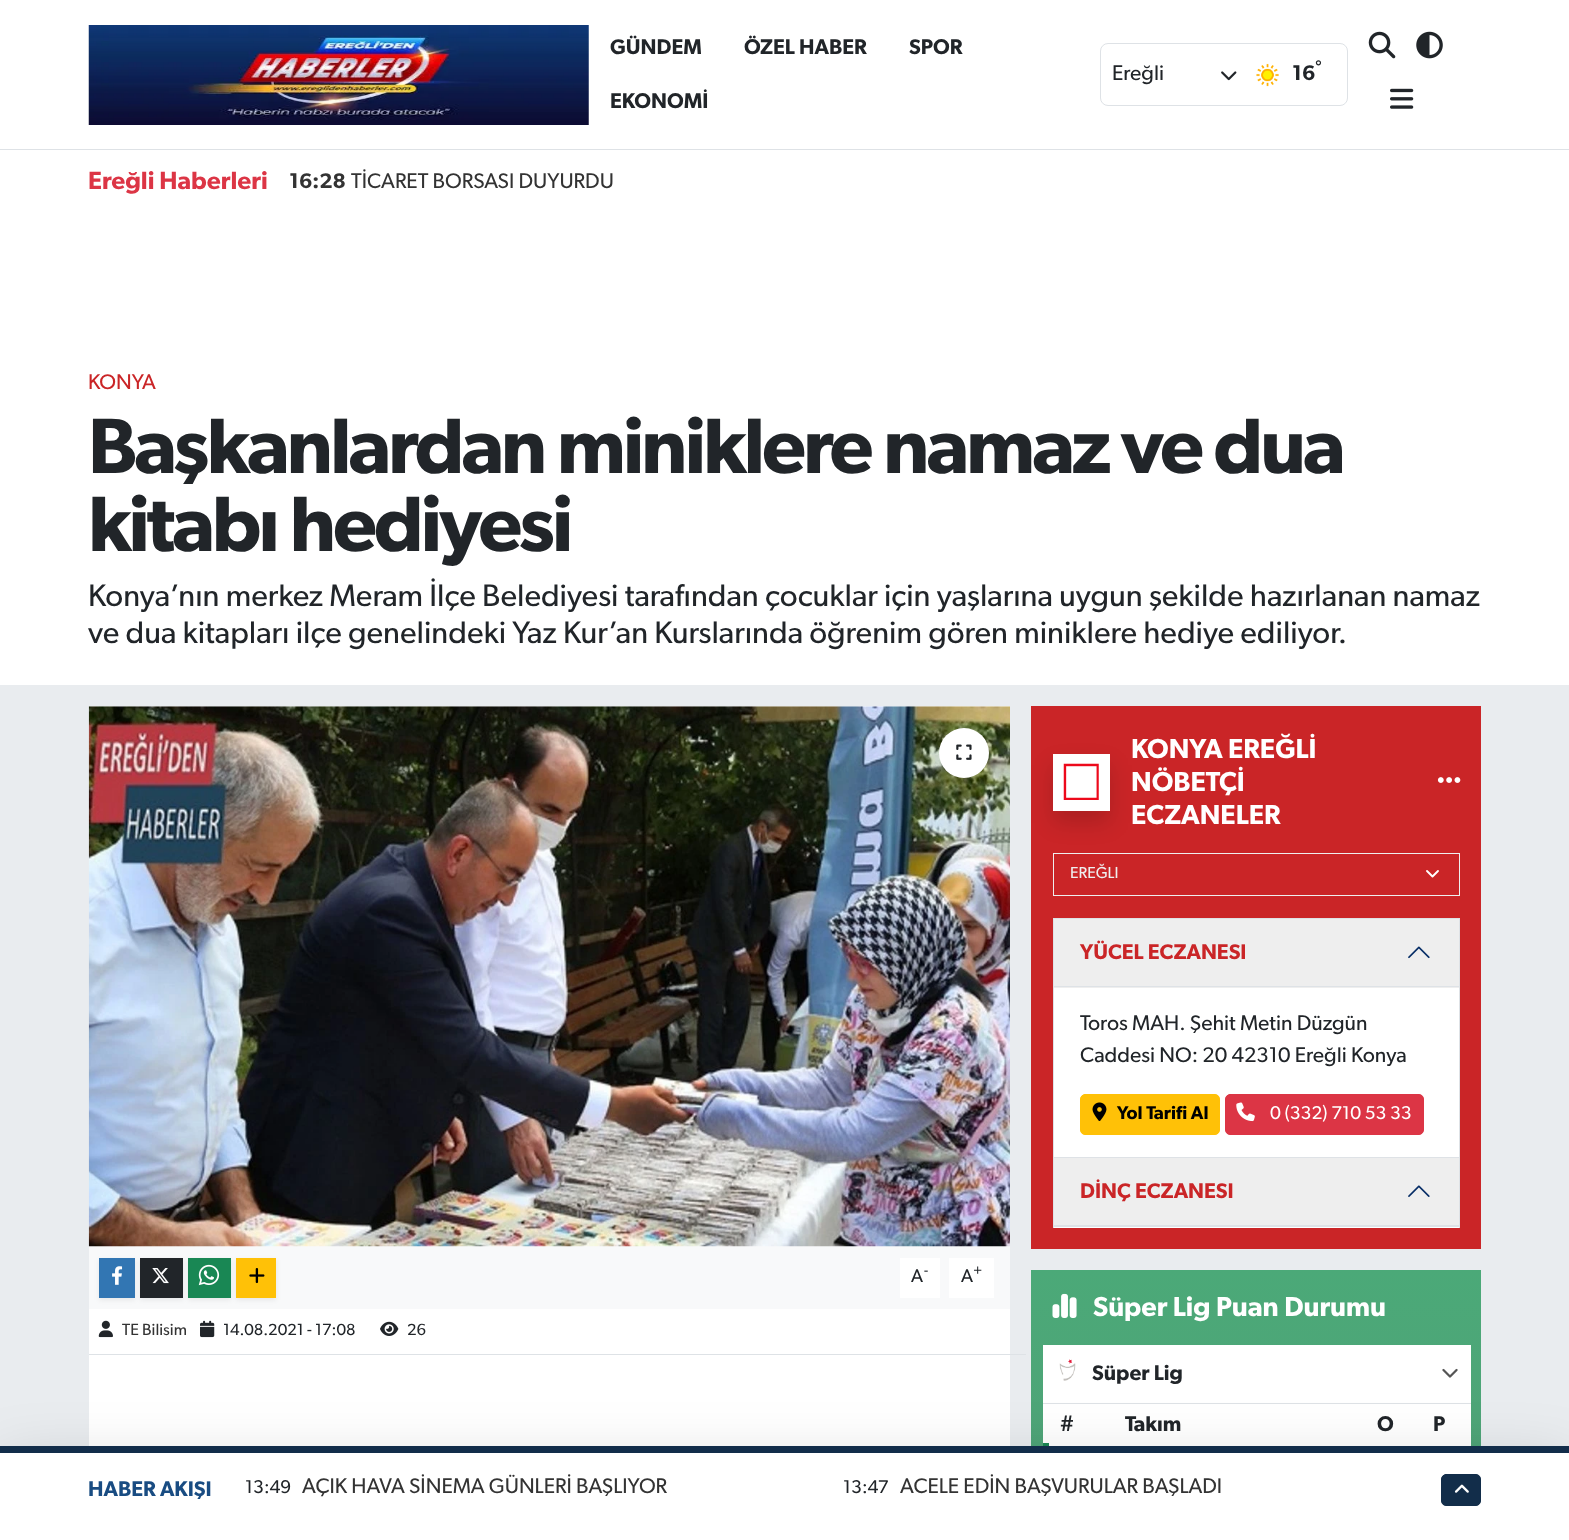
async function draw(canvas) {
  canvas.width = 1569
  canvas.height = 1540
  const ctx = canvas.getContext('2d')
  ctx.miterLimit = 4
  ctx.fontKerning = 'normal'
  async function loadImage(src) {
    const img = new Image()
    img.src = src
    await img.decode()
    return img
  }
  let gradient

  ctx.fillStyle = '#e9ecef'
  ctx.fillRect(0, 0, 1569, 1540)
  ctx.fillStyle = '#fff'
  ctx.fillRect(0, 0, 1569, 149)
  ctx.fillStyle = '#dee2e6'
  ctx.fillRect(0, 149, 1569, 1)
  ctx.drawImage(await loadImage('image0.png'), 88, 25, 501, 100)
  ctx.font = '600 21.25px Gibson'
  ctx.fillStyle = '#212529'
  ctx.fillText('GÜNDEM', 610, 54)
  ctx.fillText('ÖZEL HABER', 744, 54)
  ctx.fillText('SPOR', 909, 54)
  ctx.fillText('EKONOMİ', 610, 108)
  ctx.beginPath()
  ctx.roundRect(1100.5, 43.5, 247, 62, 7.5)
  ctx.strokeStyle = '#dee2e6'
  ctx.stroke()
  ctx.font = '21.25px Gibson'
  ctx.fillText('Ereğli', 1112, 80)
  ctx.drawImage(await loadImage('image1.png'), 1221, 71, 16, 10)
  ctx.drawImage(await loadImage('image2.png'), 1256, 63, 23, 24)
  ctx.font = '600 21.25px Gibson'
  ctx.fillText('16', 1292, 80)
  ctx.font = '600 16px Gibson'
  ctx.fillText('°', 1315, 72)
  ctx.drawImage(await loadImage('image3.png'), 1368, 31, 28, 28)
  ctx.drawImage(await loadImage('image4.png'), 1416, 31, 27, 28)
  ctx.drawImage(await loadImage('image5.png'), 1390, 88, 24, 21)
  ctx.fillStyle = '#fff'
  ctx.fillRect(0, 150, 1569, 535)
  ctx.font = '600 25px Gibson'
  ctx.fillStyle = '#dc3545'
  ctx.fillText('Ereğli Haberleri', 88, 189)
  ctx.font = '600 21.25px Gibson'
  ctx.fillStyle = '#333'
  ctx.fillText('16:28', 289, 188)
  ctx.font = '21.25px Gibson'
  ctx.fillText('TİCARET BORSASI DUYURDU', 351, 188)
  ctx.fillStyle = '#ca2527'
  ctx.fillText('KONYA', 88, 389)
  ctx.letterSpacing = '-2.9px'
  ctx.font = '600 78.75px Gibson'
  ctx.fillStyle = '#212529'
  ctx.fillText('Başkanlardan miniklere namaz ve dua', 88, 473)
  ctx.fillText('kitabı hediyesi', 88, 551)
  ctx.letterSpacing = '0px'
  ctx.font = '31.25px Gibson'
  ctx.fillText('Konya’nın merkez Meram İlçe Belediyesi tarafından çocuklar için yaşlarına uygun şekilde hazırlanan namaz', 88, 606)
  ctx.fillText('ve dua kitapları ilçe genelindeki Yaz Kur’an Kurslarında öğrenim gören miniklere hediye ediliyor.', 88, 643)
  ctx.fillStyle = '#fff'
  ctx.fillRect(89, 706, 921, 740)
  ctx.fillStyle = '#f8f9fa'
  ctx.fillRect(89, 1246, 921, 63)
  ctx.drawImage(await loadImage('image6.png'), 88, 706, 922, 541)
  ctx.fillStyle = '#fff'
  ctx.beginPath()
  ctx.arc(964, 753, 25, 0, 2 * Math.PI)
  ctx.fill()
  ctx.drawImage(await loadImage('image7.png'), 956, 744, 16, 16)
  ctx.fillStyle = '#00000012'
  ctx.filter = 'blur(2.5px)'
  ctx.beginPath()
  ctx.rect(99, 1260, 36, 40)
  ctx.fill()
  ctx.filter = 'none'
  ctx.fillStyle = '#3276b3'
  ctx.fillRect(99, 1258, 36, 40)
  ctx.drawImage(await loadImage('image8.png'), 112, 1266, 11, 19)
  ctx.fillStyle = '#00000012'
  ctx.filter = 'blur(2.5px)'
  ctx.beginPath()
  ctx.rect(140, 1260, 43, 40)
  ctx.fill()
  ctx.filter = 'none'
  ctx.fillStyle = '#212529'
  ctx.fillRect(140, 1258, 43, 40)
  ctx.drawImage(await loadImage('image9.png'), 152, 1268, 17, 16)
  ctx.fillStyle = '#00000012'
  ctx.filter = 'blur(2.5px)'
  ctx.beginPath()
  ctx.rect(188, 1260, 43, 40)
  ctx.fill()
  ctx.filter = 'none'
  ctx.fillStyle = '#198754'
  ctx.fillRect(188, 1258, 43, 40)
  ctx.drawImage(await loadImage('image10.png'), 198, 1264, 22, 22)
  ctx.fillStyle = '#00000012'
  ctx.filter = 'blur(2.5px)'
  ctx.beginPath()
  ctx.rect(236, 1260, 40, 40)
  ctx.fill()
  ctx.filter = 'none'
  ctx.fillStyle = '#ffc107'
  ctx.fillRect(236, 1258, 40, 40)
  ctx.drawImage(await loadImage('image11.png'), 249, 1268, 16, 16)
  ctx.fillStyle = '#fff'
  ctx.fillRect(900, 1258, 40, 40)
  ctx.font = '18.5px Gibson'
  ctx.fillStyle = '#212529'
  ctx.fillText('A', 911, 1282)
  ctx.font = '14px Gibson'
  ctx.fillText('-', 924, 1275)
  ctx.fillStyle = '#fff'
  ctx.fillRect(949, 1258, 45, 40)
  ctx.font = '18.5px Gibson'
  ctx.fillStyle = '#212529'
  ctx.fillText('A', 961, 1282)
  ctx.font = '14px Gibson'
  ctx.fillText('+', 973, 1275)
  ctx.fillStyle = '#dee2e6'
  ctx.fillRect(89, 1354, 937, 1)
  ctx.drawImage(await loadImage('image12.png'), 98, 1320, 15, 18)
  ctx.font = '16.25px Gibson'
  ctx.fillStyle = '#333'
  ctx.fillText('TE Bilisim', 122, 1335)
  ctx.drawImage(await loadImage('image13.png'), 200, 1320, 15, 18)
  ctx.fillStyle = '#212529'
  ctx.fillText('14.08.2021 - 17:08', 223, 1335)
  ctx.drawImage(await loadImage('image14.png'), 380, 1321, 19, 15)
  ctx.fillText('26', 407, 1335)
  ctx.fillStyle = '#ca2527'
  ctx.fillRect(1031, 706, 450, 543)
  ctx.fillStyle = '#00000026'
  ctx.filter = 'blur(10.5px)'
  ctx.beginPath()
  ctx.rect(1053, 765, 57, 58)
  ctx.fill()
  ctx.filter = 'none'
  ctx.fillStyle = '#fff'
  ctx.fillRect(1053, 754, 57, 57)
  ctx.drawImage(await loadImage('image15.png'), 1063, 763, 36, 37)
  ctx.font = '600 27.5px Gibson'
  ctx.fillText('KONYA EREĞLİ', 1131, 758)
  ctx.fillText('NÖBETÇİ', 1131, 791)
  ctx.fillText('ECZANELER', 1131, 824)
  ctx.drawImage(await loadImage('image16.png'), 1437, 777, 24, 6)
  ctx.beginPath()
  ctx.moveTo(1427, 871)
  ctx.lineTo(1432.5, 876.5)
  ctx.lineTo(1438, 871)
  ctx.strokeStyle = '#fff'
  ctx.lineWidth = 1.9
  ctx.lineCap = 'round'
  ctx.lineJoin = 'round'
  ctx.stroke()
  ctx.strokeStyle = '#efefef'
  ctx.lineWidth = 1
  ctx.lineJoin = 'miter'
  ctx.strokeRect(1053.5, 853.5, 406, 42)
  ctx.font = '16px Gibson'
  ctx.fillStyle = '#efefef'
  ctx.fillText('EREĞLI', 1070, 878)
  ctx.fillStyle = '#fff'
  ctx.fillRect(1054, 988, 405, 169)
  ctx.strokeStyle = '#dee2e6'
  ctx.strokeRect(1053.5, 918.5, 406, 239)
  ctx.fillStyle = '#eee'
  ctx.fillRect(1054, 919, 405, 69)
  ctx.fillStyle = '#dee2e6'
  ctx.fillRect(1054, 986, 405, 1)
  ctx.font = '600 21.25px Gibson'
  ctx.fillStyle = '#ca2527'
  ctx.fillText('YÜCEL ECZANESI', 1080, 959)
  ctx.drawImage(await loadImage('image17.png'), 1408, 946, 22, 13)
  ctx.font = '21.25px Gibson'
  ctx.fillStyle = '#212529'
  ctx.fillText('Toros MAH. Şehit Metin Düzgün', 1080, 1030)
  ctx.fillText('Caddesi NO: 20 42310 Ereğli Konya', 1080, 1062)
  ctx.fillStyle = '#ffc107'
  ctx.beginPath()
  ctx.roundRect(1080.5, 1094.5, 139, 40, 4.5)
  ctx.fill()
  ctx.strokeStyle = '#ffc107'
  ctx.stroke()
  ctx.drawImage(await loadImage('image18.png'), 1092, 1102, 15, 19)
  ctx.font = '600 18.5px Gibson'
  ctx.fillStyle = '#000'
  ctx.fillText('Yol Tarifi Al', 1117, 1119)
  ctx.fillStyle = '#dc3545'
  ctx.beginPath()
  ctx.roundRect(1225.5, 1094.5, 198, 40, 4.5)
  ctx.fill()
  ctx.strokeStyle = '#dc3545'
  ctx.stroke()
  ctx.drawImage(await loadImage('image19.png'), 1236, 1102, 19, 20)
  ctx.font = '18.5px Gibson'
  ctx.fillStyle = '#fff'
  ctx.fillText('0 (332) 710 53 33', 1270, 1119)
  ctx.fillRect(1054, 1227, 405, 1)
  ctx.fillStyle = '#dee2e6'
  ctx.fillRect(1459, 1158, 1, 70)
  ctx.fillRect(1053, 1226, 407, 1)
  ctx.fillRect(1053, 1158, 1, 70)
  ctx.fillStyle = '#eee'
  ctx.fillRect(1054, 1158, 405, 67)
  ctx.fillStyle = '#dee2e6'
  ctx.fillRect(1054, 1225, 405, 1)
  ctx.font = '600 21.25px Gibson'
  ctx.fillStyle = '#ca2527'
  ctx.fillText('DİNÇ ECZANESI', 1080, 1198)
  ctx.drawImage(await loadImage('image20.png'), 1408, 1185, 22, 12)
  gradient = ctx.createLinearGradient(1256, 1270, 1256, 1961)
  gradient.addColorStop(0, '#4ba978')
  gradient.addColorStop(1, '#599576')
  ctx.fillStyle = gradient
  ctx.fillRect(1031, 1270, 450, 176)
  ctx.drawImage(await loadImage('image21.png'), 1052, 1293, 25, 25)
  ctx.font = '600 27.5px Gibson'
  ctx.fillStyle = '#fff'
  ctx.fillText('Süper Lig Puan Durumu', 1093, 1316)
  ctx.fillRect(1043, 1345, 428, 101)
  ctx.fillStyle = '#dee2e6'
  ctx.fillRect(1043, 1403, 428, 1)
  ctx.drawImage(await loadImage('image22.png'), 1059, 1359, 17, 22)
  ctx.font = '600 21.25px Gibson'
  ctx.fillStyle = '#212529'
  ctx.fillText('Süper Lig', 1092, 1380)
  ctx.drawImage(await loadImage('image23.png'), 1442, 1368, 16, 10)
  ctx.fillText('#', 1060, 1431)
  ctx.fillText('Takım', 1125, 1431)
  ctx.fillText('O', 1377, 1431)
  ctx.fillText('P', 1433, 1431)
  ctx.fillStyle = '#198754'
  ctx.fillRect(1043, 1443, 6, 3)
  ctx.fillStyle = '#0000002e'
  ctx.filter = 'blur(32px)'
  ctx.beginPath()
  ctx.rect(0, 1468, 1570, 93)
  ctx.fill()
  ctx.filter = 'none'
  ctx.fillStyle = '#fff'
  ctx.fillRect(0, 1453, 1569, 87)
  ctx.fillStyle = '#122d4a'
  ctx.fillRect(0, 1446, 1569, 7)
  ctx.fillStyle = '#194c82'
  ctx.fillText('HABER AKIŞI', 88, 1496)
  ctx.font = '18.5px Gibson'
  ctx.fillStyle = '#212529'
  ctx.fillText('13:49', 245, 1493)
  ctx.font = '21.25px Gibson'
  ctx.fillStyle = '#333'
  ctx.fillText('AÇIK HAVA SİNEMA GÜNLERİ BAŞLIYOR', 302, 1493)
  ctx.font = '18.5px Gibson'
  ctx.fillStyle = '#212529'
  ctx.fillText('13:47', 843, 1493)
  ctx.font = '21.25px Gibson'
  ctx.fillStyle = '#333'
  ctx.fillText('ACELE EDİN BAŞVURULAR BAŞLADI', 900, 1493)
  ctx.fillStyle = '#122d4a'
  ctx.beginPath()
  ctx.roundRect(1441.5, 1474.5, 39, 31, 4.5)
  ctx.fill()
  ctx.strokeStyle = '#122d4a'
  ctx.stroke()
  ctx.drawImage(await loadImage('image24.png'), 1454, 1484, 15, 9)
}

draw(document.querySelector('canvas'))
